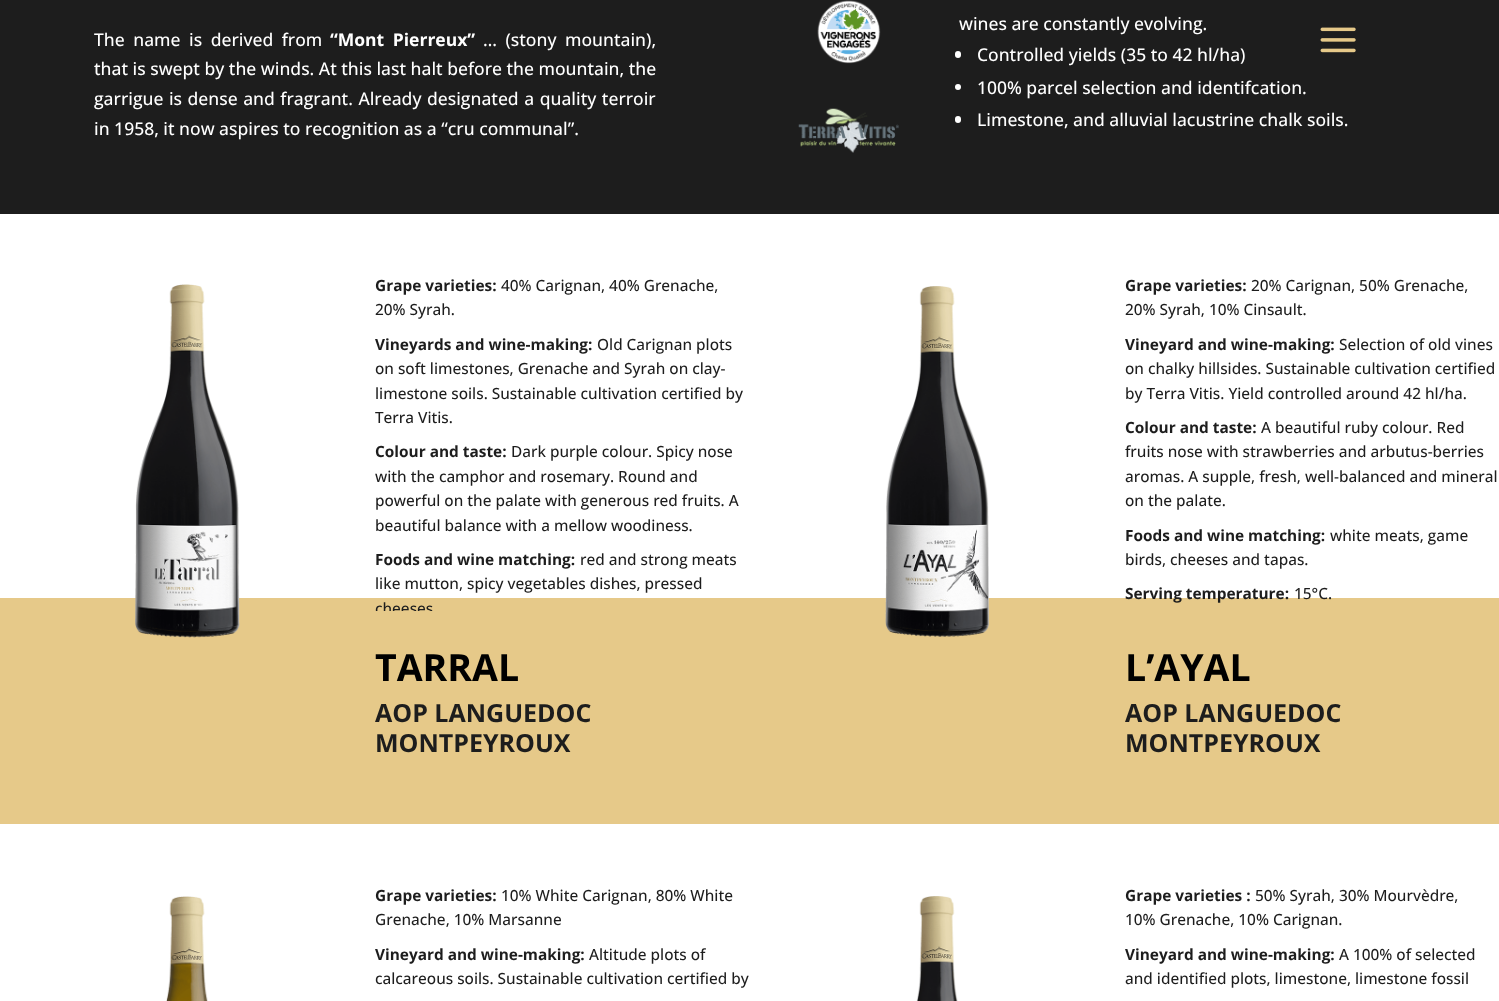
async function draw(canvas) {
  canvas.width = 1499
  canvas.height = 1001
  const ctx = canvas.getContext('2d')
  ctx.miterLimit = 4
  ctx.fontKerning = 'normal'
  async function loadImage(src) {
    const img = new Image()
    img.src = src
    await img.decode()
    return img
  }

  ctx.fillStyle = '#fff'
  ctx.fillRect(0, 0, 1499, 1001)
  ctx.fillStyle = '#1d1d1d'
  ctx.fillRect(0, 0, 1499, 214)
  ctx.wordSpacing = '4px'
  ctx.font = '500 17.5px Open Sans'
  ctx.fillStyle = '#fff'
  ctx.fillText('The name is derived from', 94, 46)
  ctx.font = 'bold 17.5px Open Sans'
  ctx.fillText('“Mont Pierreux”', 330, 46)
  ctx.font = '500 17.5px Open Sans'
  ctx.fillText('… (stony mountain),', 483, 46)
  ctx.wordSpacing = '0px'
  ctx.fillText('that is swept by the winds. At this last halt before the mountain, the', 94, 75)
  ctx.wordSpacing = '1px'
  ctx.fillText('garrigue is dense and fragrant. Already designated a quality terroir', 94, 105)
  ctx.wordSpacing = '0px'
  ctx.fillText('in 1958, it now aspires to recognition as a “cru communal”.', 94, 135)
  ctx.drawImage(await loadImage('image0.png'), 798, 108, 101, 45)
  ctx.drawImage(await loadImage('image1.png'), 817, 0, 64, 64)
  ctx.fillText('wines are constantly evolving.', 959, 30)
  ctx.beginPath()
  ctx.roundRect(955, 51, 6, 7, 3)
  ctx.fill()
  ctx.fillText('Controlled yields (35 to 42 hl/ha)', 977, 61)
  ctx.beginPath()
  ctx.arc(958, 87, 3, 0, 2 * Math.PI)
  ctx.fill()
  ctx.fillText('100% parcel selection and identifcation.', 977, 94)
  ctx.beginPath()
  ctx.roundRect(955, 116, 6, 7, 3)
  ctx.fill()
  ctx.fillText('Limestone, and alluvial lacustrine chalk soils.', 977, 126)
  ctx.fillStyle = '#e6c989'
  ctx.fillRect(0, 598, 1499, 226)
  ctx.drawImage(await loadImage('image2.png'), 135, 284, 105, 354)
  ctx.font = 'bold 15.4px Open Sans'
  ctx.fillStyle = '#1d1d1d'
  ctx.fillText('Grape varieties:', 375, 291)
  ctx.font = '500 15.4px Open Sans'
  ctx.fillText('40% Carignan, 40% Grenache,', 501, 291)
  ctx.fillText('20% Syrah.', 375, 315)
  ctx.font = 'bold 15.4px Open Sans'
  ctx.fillText('Vineyards and wine-making:', 375, 350)
  ctx.font = '500 15.4px Open Sans'
  ctx.fillText('Old Carignan plots', 597, 350)
  ctx.fillText('on soft limestones, Grenache and Syrah on clay-', 375, 374)
  ctx.fillText('limestone soils. Sustainable cultivation certified by', 375, 399)
  ctx.fillText('Terra Vitis.', 375, 423)
  ctx.font = 'bold 15.4px Open Sans'
  ctx.fillText('Colour and taste:', 375, 457)
  ctx.font = '500 15.4px Open Sans'
  ctx.fillText('Dark purple colour. Spicy nose', 511, 457)
  ctx.fillText('with the camphor and rosemary. Round and', 375, 482)
  ctx.fillText('powerful on the palate with generous red fruits. A', 375, 506)
  ctx.fillText('beautiful balance with a mellow woodiness.', 375, 531)
  ctx.font = 'bold 15.4px Open Sans'
  ctx.fillText('Foods and wine matching:', 375, 565)
  ctx.font = '500 15.4px Open Sans'
  ctx.fillText('red and strong meats', 580, 565)
  ctx.fillText('like mutton, spicy vegetables dishes, pressed', 375, 589)
  ctx.save()
  ctx.beginPath()
  ctx.rect(375, 274, 375, 337)
  ctx.clip()
  ctx.fillText('cheeses', 375, 614)
  ctx.restore()
  ctx.font = 'bold 37.5px Open Sans'
  ctx.fillStyle = '#000'
  ctx.fillText('TARRAL', 375, 681)
  ctx.font = 'bold 25px Open Sans'
  ctx.fillStyle = '#1d1d1d'
  ctx.fillText('AOP LANGUEDOC', 375, 722)
  ctx.fillText('MONTPEYROUX', 375, 752)
  ctx.drawImage(await loadImage('image3.png'), 885, 286, 104, 351)
  ctx.font = 'bold 15.4px Open Sans'
  ctx.fillText('Grape varieties:', 1125, 291)
  ctx.font = '500 15.4px Open Sans'
  ctx.fillText('20% Carignan, 50% Grenache,', 1251, 291)
  ctx.fillText('20% Syrah, 10% Cinsault.', 1125, 315)
  ctx.font = 'bold 15.4px Open Sans'
  ctx.fillText('Vineyard and wine-making:', 1125, 350)
  ctx.font = '500 15.4px Open Sans'
  ctx.fillText('Selection of old vines', 1339, 350)
  ctx.fillText('on chalky hillsides. Sustainable cultivation certified', 1125, 374)
  ctx.fillText('by Terra Vitis. Yield controlled around 42 hl/ha.', 1125, 399)
  ctx.font = 'bold 15.4px Open Sans'
  ctx.fillText('Colour and taste:', 1125, 433)
  ctx.font = '500 15.4px Open Sans'
  ctx.fillText('A beautiful ruby colour. Red', 1261, 433)
  ctx.fillText('fruits nose with strawberries and arbutus-berries', 1125, 457)
  ctx.fillText('aromas. A supple, fresh, well-balanced and mineral', 1125, 482)
  ctx.fillText('on the palate.', 1125, 506)
  ctx.font = 'bold 15.4px Open Sans'
  ctx.fillText('Foods and wine matching:', 1125, 541)
  ctx.font = '500 15.4px Open Sans'
  ctx.fillText('white meats, game', 1330, 541)
  ctx.fillText('birds, cheeses and tapas.', 1125, 565)
  ctx.font = 'bold 15.4px Open Sans'
  ctx.fillText('Serving temperature:', 1125, 599)
  ctx.font = '500 15.4px Open Sans'
  ctx.fillText('15°C.', 1294, 599)
  ctx.font = 'bold 37.5px Open Sans'
  ctx.fillStyle = '#000'
  ctx.fillText('L’AYAL', 1125, 681)
  ctx.font = 'bold 25px Open Sans'
  ctx.fillStyle = '#1d1d1d'
  ctx.fillText('AOP LANGUEDOC', 1125, 722)
  ctx.fillText('MONTPEYROUX', 1125, 752)
  ctx.drawImage(await loadImage('image4.png'), 166, 896, 42, 105)
  ctx.font = 'bold 15.4px Open Sans'
  ctx.fillText('Grape varieties:', 375, 901)
  ctx.font = '500 15.4px Open Sans'
  ctx.fillText('10% White Carignan, 80% White', 501, 901)
  ctx.fillText('Grenache, 10% Marsanne', 375, 925)
  ctx.font = 'bold 15.4px Open Sans'
  ctx.fillText('Vineyard and wine-making:', 375, 960)
  ctx.font = '500 15.4px Open Sans'
  ctx.fillText('Altitude plots of', 589, 960)
  ctx.fillText('calcareous soils. Sustainable cultivation certified by', 375, 984)
  ctx.drawImage(await loadImage('image5.png'), 916, 896, 42, 105)
  ctx.font = 'bold 15.4px Open Sans'
  ctx.fillText('Grape varieties :', 1125, 901)
  ctx.font = '500 15.4px Open Sans'
  ctx.fillText('50% Syrah, 30% Mourvèdre,', 1255, 901)
  ctx.fillText('10% Grenache, 10% Carignan.', 1125, 925)
  ctx.font = 'bold 15.4px Open Sans'
  ctx.fillText('Vineyard and wine-making:', 1125, 960)
  ctx.font = '500 15.4px Open Sans'
  ctx.fillText('A 100% of selected', 1339, 960)
  ctx.fillText('and identified plots, limestone, limestone fossil', 1125, 984)
  ctx.drawImage(await loadImage('image6.png'), 1320, 27, 36, 26)
}

draw(document.querySelector('canvas'))
